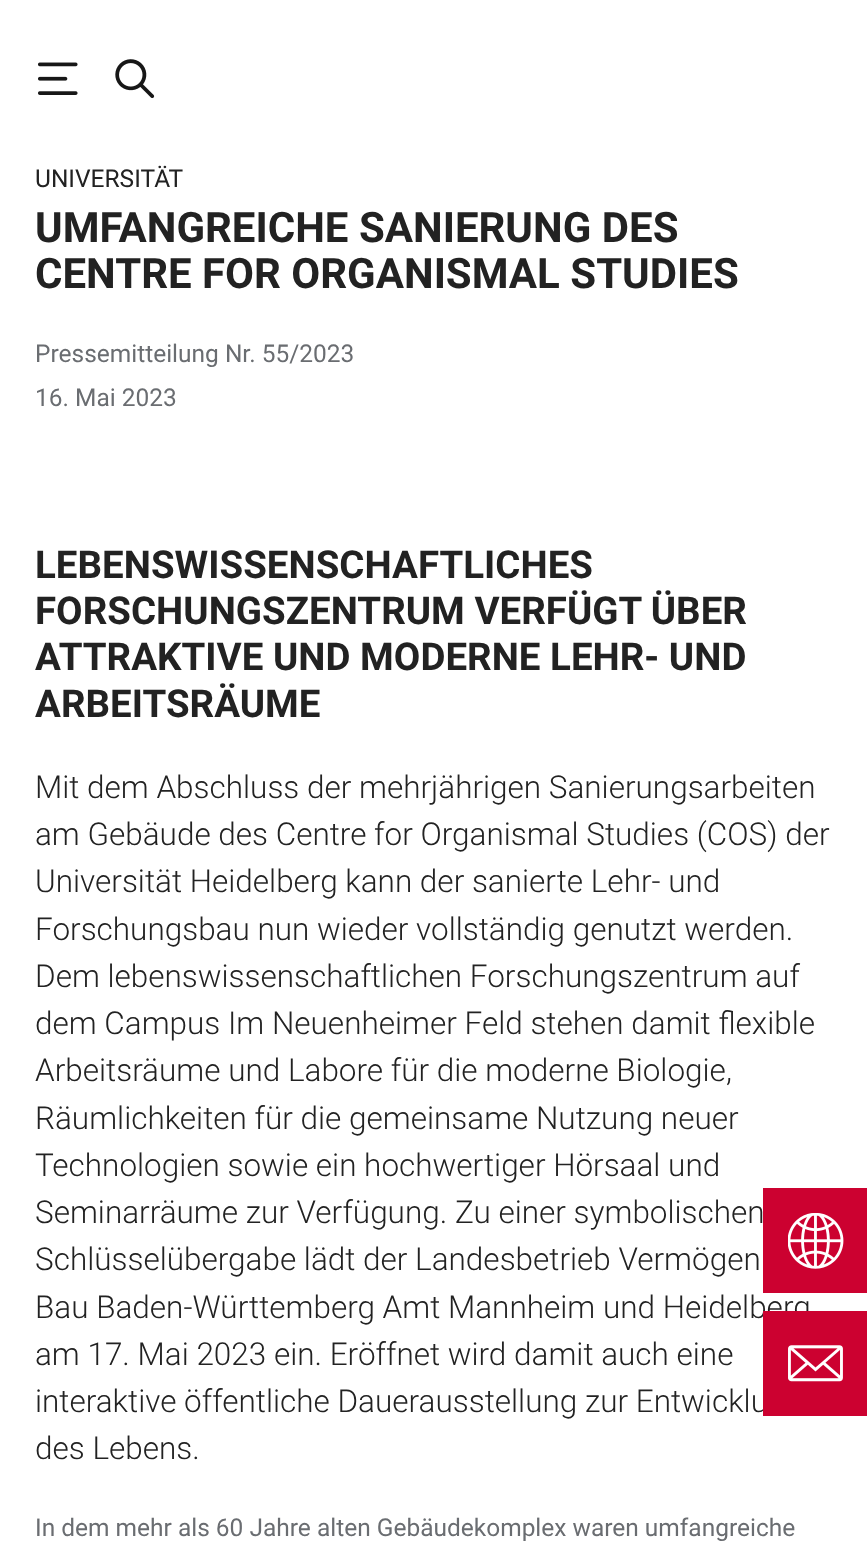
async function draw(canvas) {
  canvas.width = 867
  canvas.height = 1563
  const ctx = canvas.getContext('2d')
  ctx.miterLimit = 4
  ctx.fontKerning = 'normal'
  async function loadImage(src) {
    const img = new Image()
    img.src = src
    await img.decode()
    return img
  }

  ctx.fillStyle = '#fff'
  ctx.fillRect(0, 0, 867, 1563)
  ctx.drawImage(await loadImage('image0.png'), 38, 62, 40, 33)
  ctx.drawImage(await loadImage('image1.png'), 115, 59, 40, 40)
  ctx.font = '24.5px Roboto'
  ctx.fillStyle = '#222'
  ctx.fillText('UNIVERSITÄT', 35, 187)
  ctx.font = 'bold 42px Roboto'
  ctx.fillText('UMFANGREICHE SANIERUNG DES', 35, 242)
  ctx.fillText('CENTRE FOR ORGANISMAL STUDIES', 35, 288)
  ctx.font = '24.5px Roboto'
  ctx.fillStyle = '#6a6d71'
  ctx.fillText('Pressemitteilung Nr. 55/2023', 35, 362)
  ctx.fillText('16. Mai 2023', 35, 406)
  ctx.font = 'bold 38.5px Roboto'
  ctx.fillStyle = '#222'
  ctx.fillText('LEBENSWISSENSCHAFTLICHES', 35, 578)
  ctx.fillText('FORSCHUNGSZENTRUM VERFÜGT ÜBER', 35, 624)
  ctx.fillText('ATTRAKTIVE UND MODERNE LEHR- UND', 35, 670)
  ctx.fillText('ARBEITSRÄUME', 35, 717)
  ctx.font = '300 31.5px Roboto'
  ctx.fillText('Mit dem Abschluss der mehrjährigen Sanierungsarbeiten', 35, 798)
  ctx.fillText('am Gebäude des Centre for Organismal Studies (COS) der', 35, 845)
  ctx.fillText('Universität Heidelberg kann der sanierte Lehr- und', 35, 892)
  ctx.fillText('Forschungsbau nun wieder vollständig genutzt werden.', 35, 940)
  ctx.fillText('Dem lebenswissenschaftlichen Forschungszentrum auf', 35, 987)
  ctx.fillText('dem Campus Im Neuenheimer Feld stehen damit flexible', 35, 1034)
  ctx.fillText('Arbeitsräume und Labore für die moderne Biologie,', 35, 1081)
  ctx.fillText('Räumlichkeiten für die gemeinsame Nutzung neuer', 35, 1129)
  ctx.fillText('Technologien sowie ein hochwertiger Hörsaal und', 35, 1176)
  ctx.fillText('Seminarräume zur Verfügung. Zu einer symbolischen', 35, 1223)
  ctx.fillText('Schlüsselübergabe lädt der Landesbetrieb Vermögen', 35, 1270)
  ctx.fillText('Bau Baden-Württemberg Amt Mannheim und Heidelberg', 35, 1318)
  ctx.fillText('am 17. Mai 2023 ein. Eröffnet wird damit auch eine', 35, 1365)
  ctx.fillText('interaktive öffentliche Dauerausstellung zur Entwicklu', 35, 1412)
  ctx.fillText('des Lebens.', 35, 1459)
  ctx.font = '24.5px Roboto'
  ctx.fillStyle = '#6a6d71'
  ctx.fillText('In dem mehr als 60 Jahre alten Gebäudekomplex waren umfangreiche', 35, 1536)
  ctx.fillStyle = '#cc0130'
  ctx.fillRect(763, 1188, 104, 105)
  ctx.drawImage(await loadImage('image2.png'), 788, 1213, 56, 56)
  ctx.fillRect(763, 1311, 104, 105)
  ctx.drawImage(await loadImage('image3.png'), 788, 1345, 55, 37)
}

draw(document.querySelector('canvas'))
